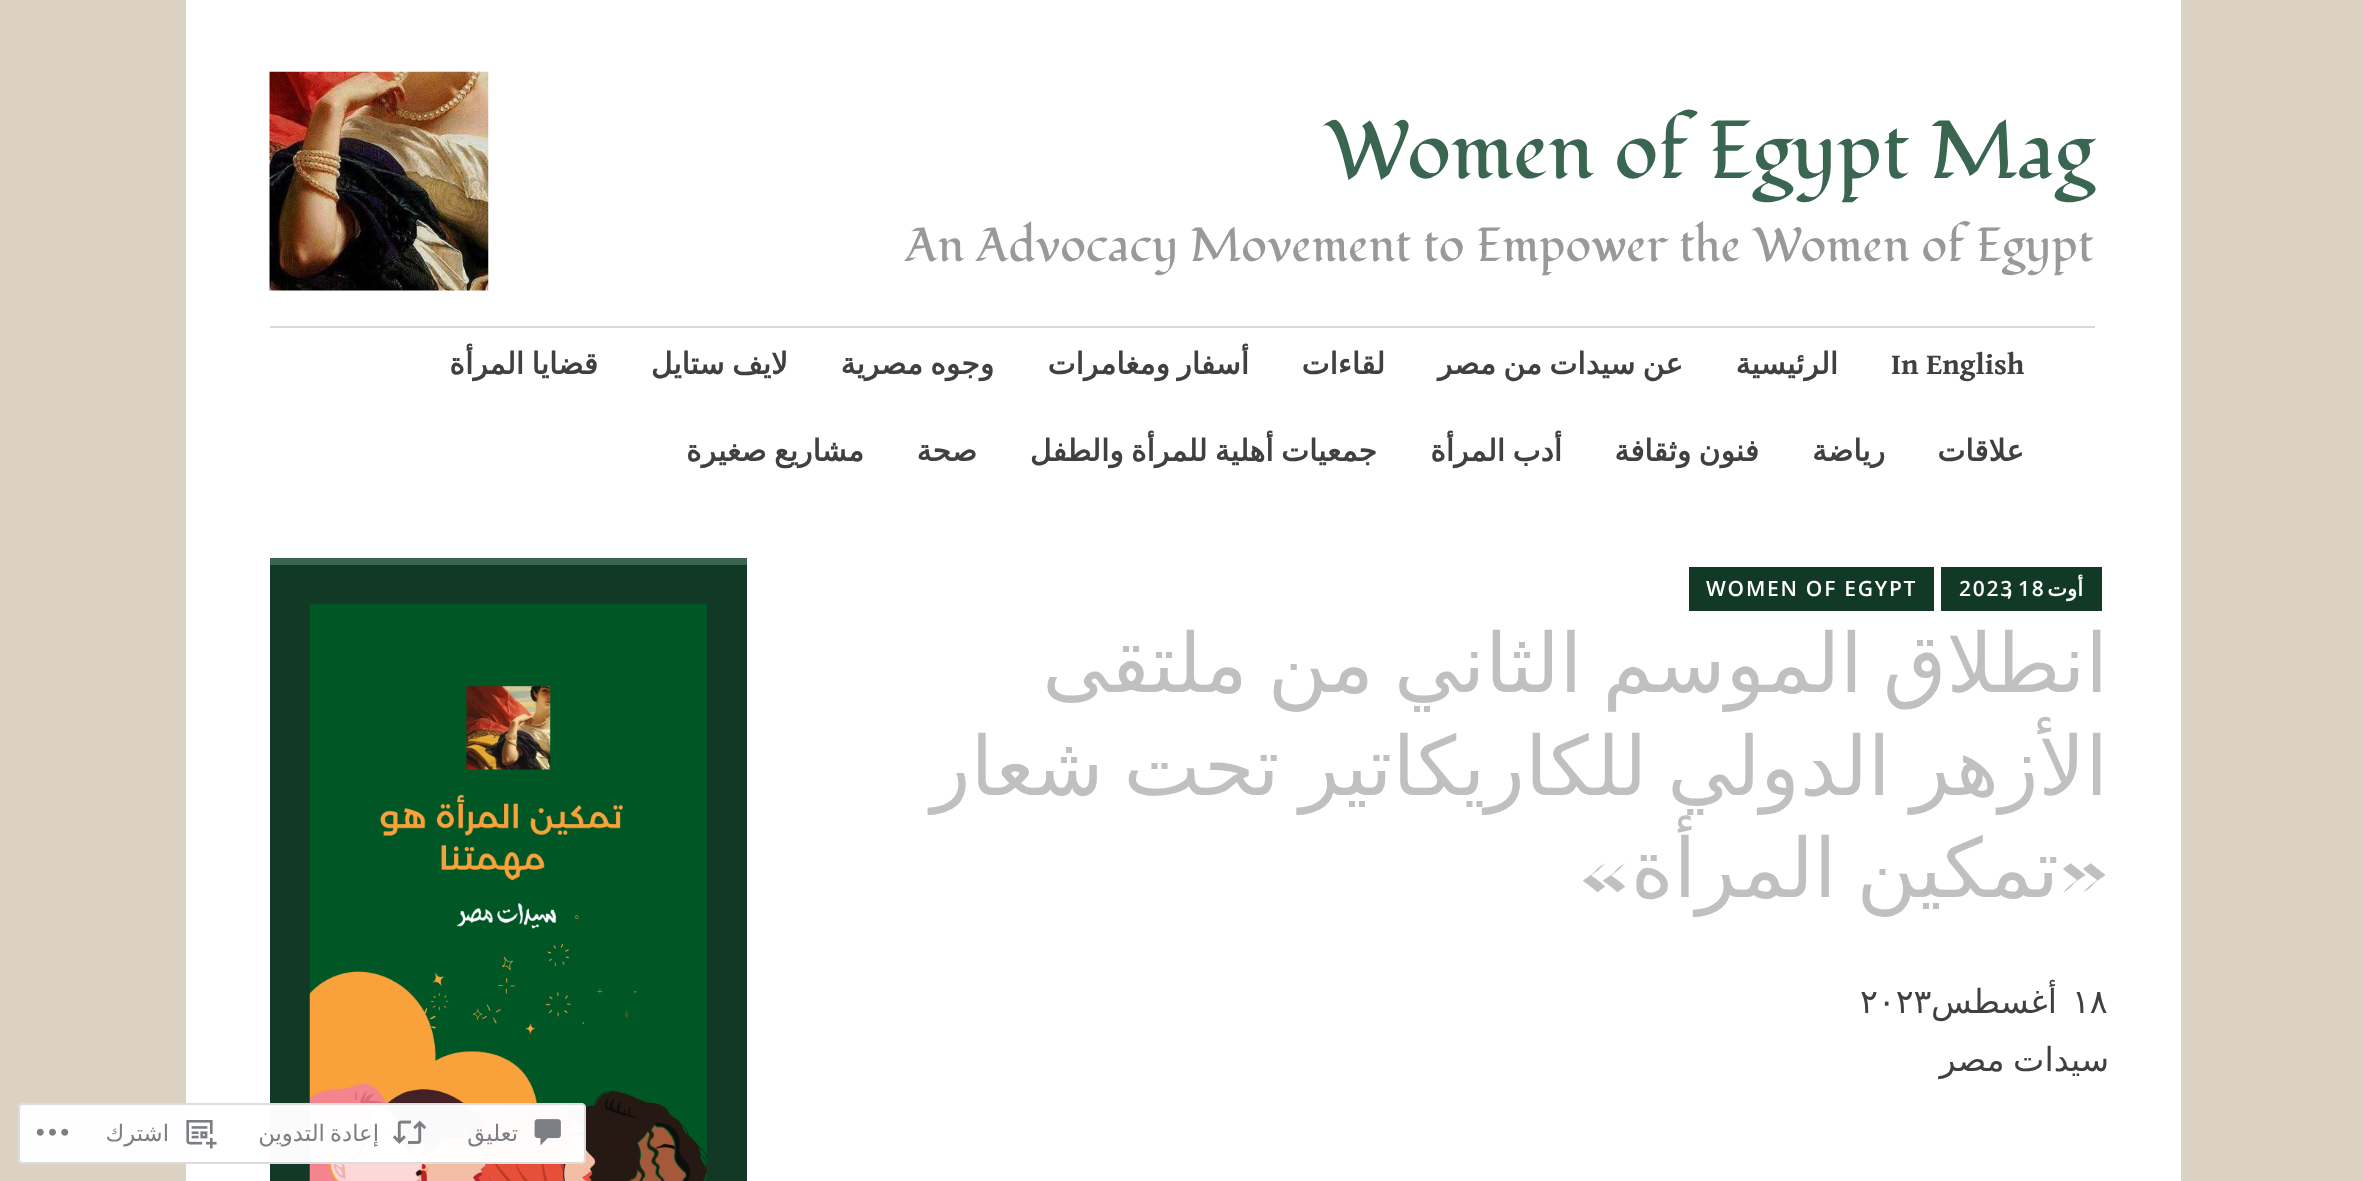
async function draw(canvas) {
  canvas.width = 2363
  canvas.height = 1181
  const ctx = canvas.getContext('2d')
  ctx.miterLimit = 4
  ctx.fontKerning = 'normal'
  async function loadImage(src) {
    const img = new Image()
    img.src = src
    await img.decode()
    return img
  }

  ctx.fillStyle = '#dbd2c3'
  ctx.fillRect(0, 0, 2363, 1181)
  ctx.fillStyle = '#fff'
  ctx.fillRect(186, 0, 1995, 1181)
  ctx.font = '81.9px Fondamento'
  ctx.fillStyle = '#3a6551'
  ctx.fillText('Women of Egypt Mag', 1325, 178)
  ctx.drawImage(await loadImage('image0.png'), 269, 71, 220, 220)
  ctx.font = '47.75px Fondamento'
  ctx.fillStyle = '#999'
  ctx.fillText('An Advocacy Movement to Empower the Women of Egypt', 905, 261)
  ctx.fillStyle = '#d9d9d9'
  ctx.fillRect(270, 326, 1825, 2)
  ctx.font = 'bold 29.75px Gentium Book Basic'
  ctx.fillStyle = '#404040'
  ctx.fillText('In English', 1891, 374)
  ctx.direction = 'rtl'
  ctx.font = 'bold 29.75px DejaVu Sans'
  ctx.fillText('الرئيسية', 1838, 374)
  ctx.wordSpacing = '-2px'
  ctx.fillText('عن سيدات من مصر', 1683, 374)
  ctx.wordSpacing = '0px'
  ctx.fillText('لقاءات', 1385, 374)
  ctx.wordSpacing = '-2px'
  ctx.fillText('أسفار ومغامرات', 1249, 374)
  ctx.fillText('وجوه مصرية', 994, 374)
  ctx.fillText('لايف ستايل', 788, 374)
  ctx.fillText('قضايا المرأة', 598, 374)
  ctx.wordSpacing = '0px'
  ctx.fillText('علاقات', 2024, 461)
  ctx.fillText('رياضة', 1885, 461)
  ctx.wordSpacing = '-2px'
  ctx.fillText('فنون وثقافة', 1759, 461)
  ctx.fillText('أدب المرأة', 1562, 461)
  ctx.fillText('جمعيات أهلية للمرأة والطفل', 1377, 461)
  ctx.wordSpacing = '0px'
  ctx.fillText('صحة', 977, 461)
  ctx.wordSpacing = '-2px'
  ctx.fillText('مشاريع صغيرة', 864, 461)
  ctx.fillStyle = '#123926'
  ctx.fillRect(1941, 567, 161, 44)
  ctx.letterSpacing = '1.75px'
  ctx.wordSpacing = '0px'
  ctx.direction = 'ltr'
  ctx.font = '600 21px Open Sans'
  ctx.fillStyle = '#fff'
  ctx.fillText('18', 2018, 596)
  ctx.direction = 'rtl'
  ctx.font = 'bold 21px DejaVu Sans'
  ctx.fillText('أوت', 2083, 596)
  ctx.direction = 'ltr'
  ctx.font = '600 21px Open Sans'
  ctx.fillText('2023', 1959, 596)
  ctx.fillText(',', 2007, 596)
  ctx.fillStyle = '#123926'
  ctx.fillRect(1689, 567, 245, 44)
  ctx.fillStyle = '#fff'
  ctx.fillText('WOMEN OF EGYPT', 1706, 596)
  ctx.letterSpacing = '0px'
  ctx.wordSpacing = '-6px'
  ctx.direction = 'rtl'
  ctx.font = '81.9px DejaVu Sans'
  ctx.fillStyle = '#c0c0c0'
  ctx.fillText('انطلاق الموسم الثاني من ملتقى', 2108, 692)
  ctx.fillText('الأزهر الدولي للكاريكاتير تحت شعار', 2108, 795)
  ctx.wordSpacing = '0px'
  ctx.font = '81.9px Fondamento'
  ctx.fillText('«', 2108, 897)
  ctx.wordSpacing = '-6px'
  ctx.font = '81.9px DejaVu Sans'
  ctx.fillText('تمكين المرأة', 2059, 897)
  ctx.wordSpacing = '0px'
  ctx.font = '81.9px Fondamento'
  ctx.fillText('»', 1630, 897)
  ctx.direction = 'ltr'
  ctx.font = '33.25px DejaVu Sans'
  ctx.fillStyle = '#404040'
  ctx.fillText('١٨', 2072, 1013)
  ctx.direction = 'rtl'
  ctx.fillText('أغسطس', 2057, 1013)
  ctx.direction = 'ltr'
  ctx.fillText('٢٠٢٣', 1860, 1013)
  ctx.wordSpacing = '-2px'
  ctx.direction = 'rtl'
  ctx.fillText('سيدات مصر', 2109, 1071)
  ctx.fillStyle = '#123926'
  ctx.fillRect(270, 565, 477, 616)
  ctx.fillStyle = '#3a6551'
  ctx.fillRect(270, 558, 477, 7)
  ctx.drawImage(await loadImage('image1.png'), 309, 603, 398, 578)
  ctx.fillStyle = '#fffffffa'
  ctx.beginPath()
  ctx.roundRect(18, 1103, 568, 61, 5)
  ctx.fill()
  ctx.beginPath()
  ctx.roundRect(19, 1104, 566, 59, 4)
  ctx.strokeStyle = '#dcdcdefa'
  ctx.lineWidth = 2
  ctx.stroke()
  ctx.drawImage(await loadImage('image2.png'), 534, 1119, 27, 27)
  ctx.wordSpacing = '0px'
  ctx.font = '22.75px DejaVu Sans'
  ctx.fillStyle = '#7b7f84'
  ctx.fillText('تعليق', 518, 1141)
  ctx.drawImage(await loadImage('image3.png'), 392, 1120, 35, 24)
  ctx.wordSpacing = '-2px'
  ctx.fillText('إعادة التدوين', 379, 1141)
  ctx.drawImage(await loadImage('image4.png'), 186, 1120, 31, 29)
  ctx.wordSpacing = '0px'
  ctx.fillText('اشترك', 169, 1141)
  ctx.drawImage(await loadImage('image5.png'), 36, 1128, 33, 8)
}

draw(document.querySelector('canvas'))
